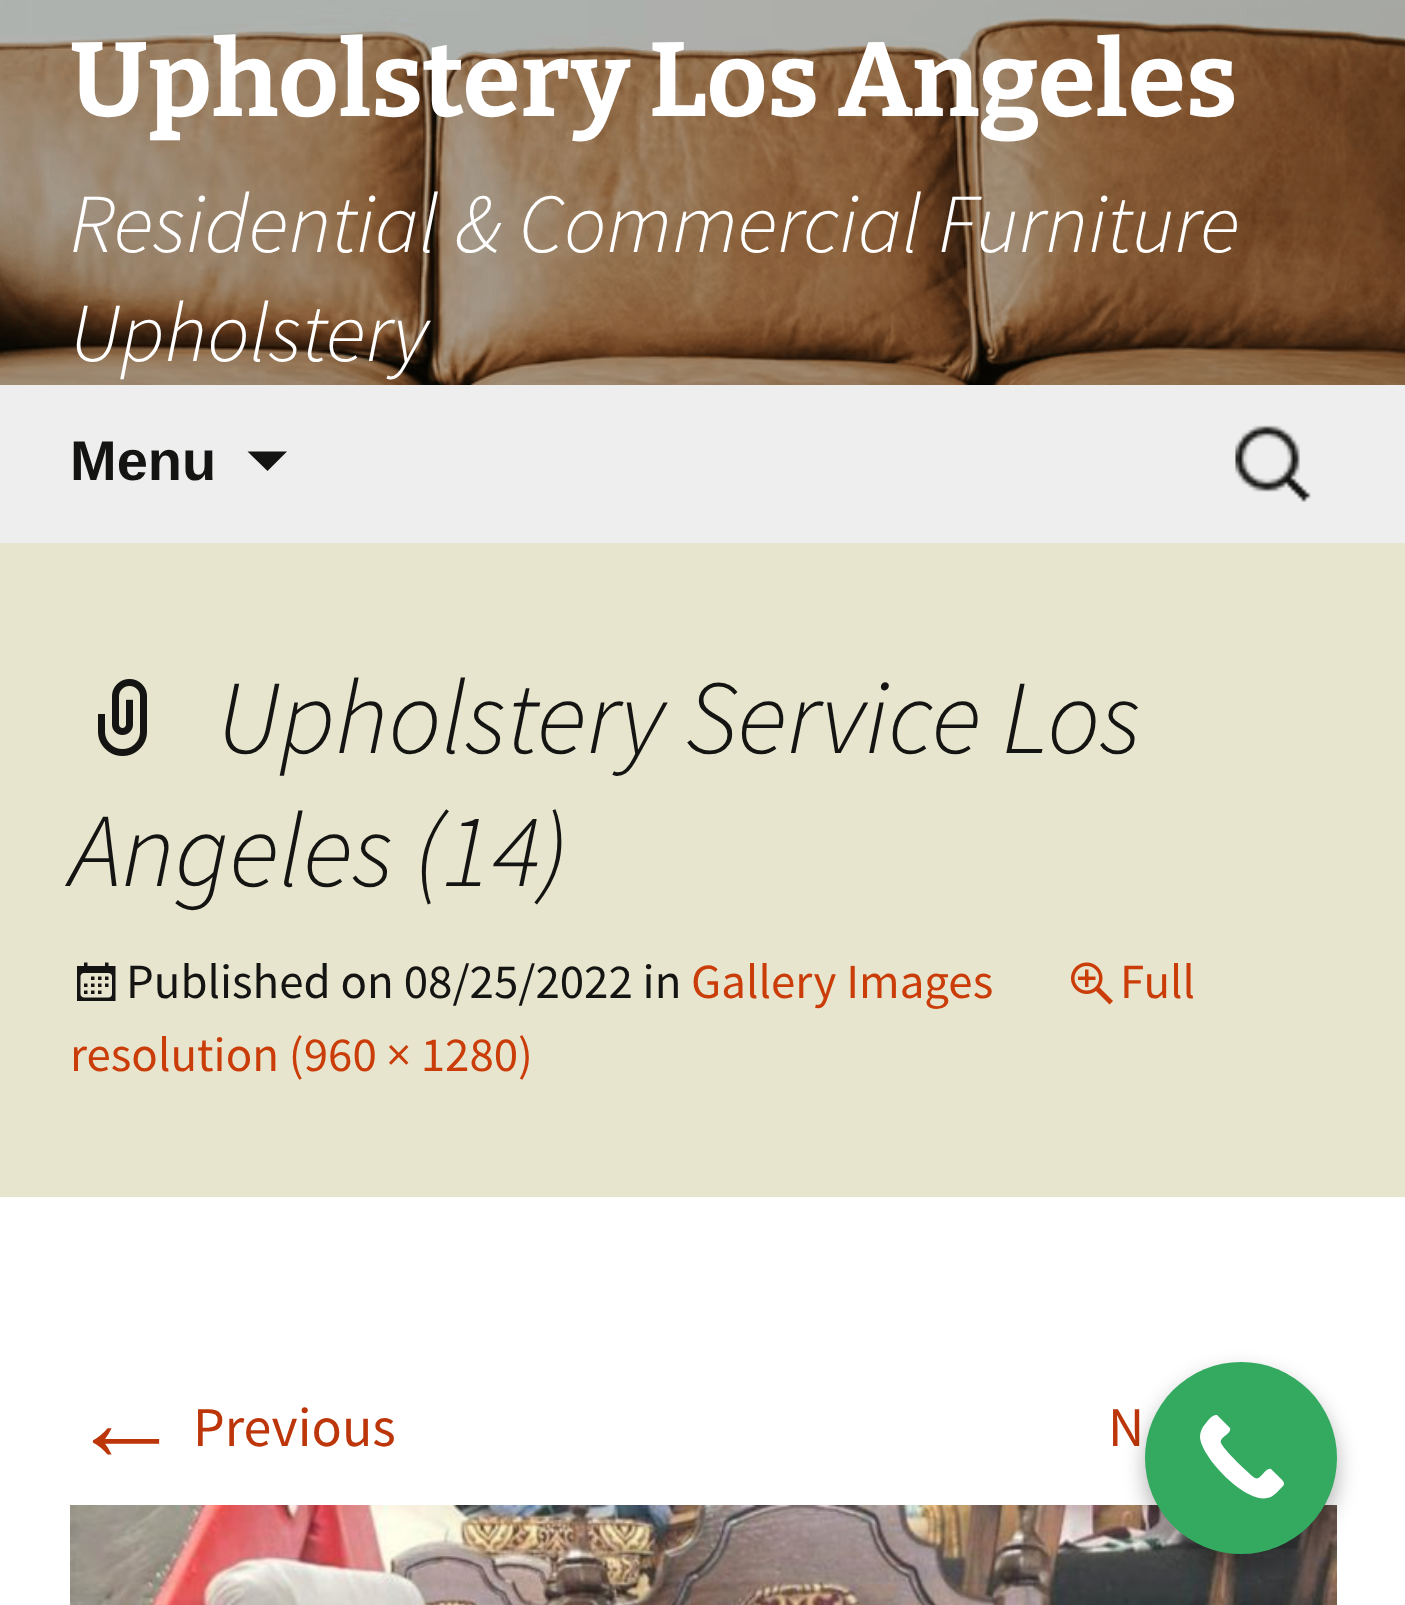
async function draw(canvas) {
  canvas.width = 1405
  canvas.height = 1605
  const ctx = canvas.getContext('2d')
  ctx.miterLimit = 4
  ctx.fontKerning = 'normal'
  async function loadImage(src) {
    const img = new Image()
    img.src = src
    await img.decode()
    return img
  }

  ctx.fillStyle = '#fff'
  ctx.fillRect(0, 0, 1405, 1605)
  ctx.drawImage(await loadImage('image0.png'), 0, 0, 1405, 385)
  ctx.font = 'bold 105px Bitter'
  ctx.fillText('Upholstery Los Angeles', 70, 116)
  ctx.font = 'italic 300 84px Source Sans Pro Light'
  ctx.fillText('Residential & Commercial Furniture', 70, 252)
  ctx.fillText('Upholstery', 70, 361)
  ctx.fillStyle = '#eee'
  ctx.fillRect(0, 385, 1405, 158)
  ctx.font = 'bold 56px Liberation Sans'
  ctx.fillStyle = '#141412'
  ctx.fillText('Menu', 70, 480)
  ctx.beginPath()
  ctx.moveTo(247.5, 451.5)
  ctx.lineTo(267.5, 471)
  ctx.lineTo(287, 451.5)
  ctx.closePath()
  ctx.fill()
  ctx.drawImage(await loadImage('image1.png'), 1235, 425, 76, 77)
  ctx.fillStyle = '#e8e5ce'
  ctx.fillRect(0, 543, 1405, 654)
  ctx.drawImage(await loadImage('image2.png'), 98, 679, 49, 77)
  ctx.font = 'italic 300 105px Source Sans Pro Light'
  ctx.fillStyle = '#141412'
  ctx.fillText('Upholstery Service Los', 217, 753)
  ctx.fillText('Angeles (14)', 70, 886)
  ctx.drawImage(await loadImage('image3.png'), 1071, 962, 42, 43)
  ctx.font = '49px Source Sans Pro'
  ctx.fillStyle = '#ca3c08'
  ctx.fillText('Full', 1120, 998)
  ctx.fillText('resolution (960 × 1280)', 70, 1071)
  ctx.drawImage(await loadImage('image4.png'), 77, 962, 39, 39)
  ctx.fillStyle = '#141412'
  ctx.fillText('Published on 08/25/2022 in', 126, 998)
  ctx.fillStyle = '#ca3c08'
  ctx.fillText('Gallery Images', 691, 998)
  ctx.font = '112px Liberation Sans'
  ctx.fillStyle = '#bc360a'
  ctx.fillText('←', 70, 1460)
  ctx.font = '56px Source Sans Pro'
  ctx.fillText('Previous', 193, 1446)
  ctx.fillText('N', 1108, 1446)
  ctx.drawImage(await loadImage('image5.png'), 70, 1505, 1267, 100)
  ctx.fillStyle = '#0000004d'
  ctx.filter = 'blur(10.5px)'
  ctx.beginPath()
  ctx.roundRect(1145, 1372, 192, 193, 96)
  ctx.fill()
  ctx.filter = 'none'
  ctx.fillStyle = '#34aa60'
  ctx.beginPath()
  ctx.arc(1241, 1458, 96, 0, 2 * Math.PI)
  ctx.fill()
  ctx.fillStyle = '#fff'
  ctx.beginPath()
  ctx.moveTo(1283, 1486)
  ctx.bezierCurveTo(1278, 1491, 1274, 1497, 1267, 1498)
  ctx.bezierCurveTo(1245, 1503, 1201, 1457, 1200, 1437)
  ctx.bezierCurveTo(1200, 1432, 1202, 1427, 1206, 1423)
  ctx.bezierCurveTo(1208, 1420, 1213, 1414, 1217, 1415)
  ctx.lineTo(1230, 1428)
  ctx.bezierCurveTo(1232, 1434, 1219, 1437, 1221, 1443)
  ctx.bezierCurveTo(1223, 1449, 1250, 1475, 1255, 1478)
  ctx.bezierCurveTo(1261, 1481, 1265, 1467, 1271, 1469)
  ctx.lineTo(1276, 1474)
  ctx.bezierCurveTo(1278, 1476, 1283, 1480, 1284, 1483)
  ctx.bezierCurveTo(1284, 1484, 1284, 1485, 1283, 1486)
  ctx.closePath()
  ctx.fill()
}

draw(document.querySelector('canvas'))
